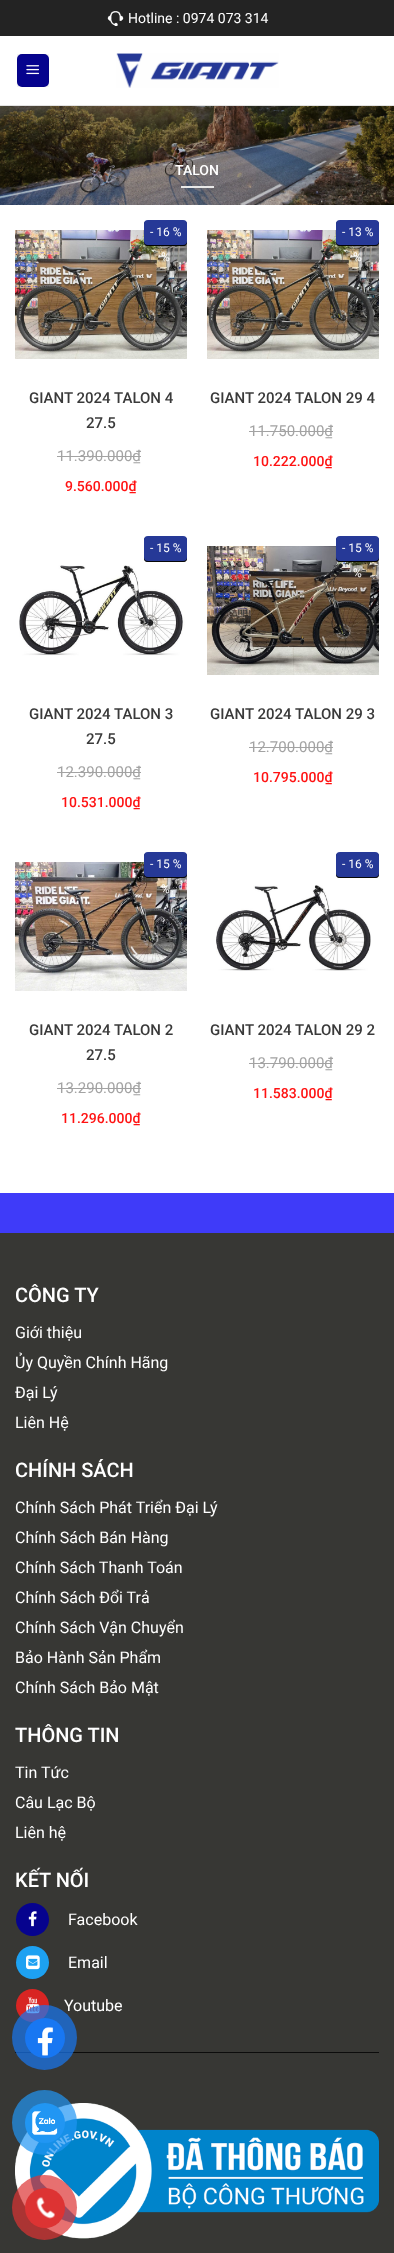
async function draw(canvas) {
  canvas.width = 394
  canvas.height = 2253
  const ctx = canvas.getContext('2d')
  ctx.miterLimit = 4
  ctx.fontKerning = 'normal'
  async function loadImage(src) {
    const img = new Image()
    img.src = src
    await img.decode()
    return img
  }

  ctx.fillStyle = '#fff'
  ctx.fillRect(0, 0, 394, 2253)
  ctx.fillStyle = '#232323'
  ctx.fillRect(0, 0, 394, 36)
  ctx.drawImage(await loadImage('image0.png'), 107, 11, 17, 15)
  ctx.font = '14px Roboto'
  ctx.fillStyle = '#fff'
  ctx.fillText('Hotline : 0974 073 314', 128, 23)
  ctx.fillStyle = '#e2e2e2'
  ctx.fillRect(0, 105, 394, 1)
  ctx.fillStyle = '#06038e'
  ctx.beginPath()
  ctx.roundRect(17, 54, 32, 33, 5)
  ctx.fill()
  ctx.strokeStyle = '#0000000d'
  ctx.strokeRect(17.5, 54.5, 31, 32)
  ctx.drawImage(await loadImage('image1.png'), 26, 65, 13, 10)
  ctx.drawImage(await loadImage('image2.png'), 116, 53, 163, 35)
  ctx.drawImage(await loadImage('image3.png'), 0, 106, 394, 99)
  ctx.font = '500 14px Roboto'
  ctx.fillStyle = '#fff'
  ctx.fillText('TALON', 175, 175)
  ctx.fillStyle = '#e8e8e8'
  ctx.fillRect(181, 186, 33, 2)
  ctx.drawImage(await loadImage('image4.png'), 15, 230, 172, 129)
  ctx.fillStyle = '#000000ab'
  ctx.filter = 'blur(0.5px)'
  ctx.beginPath()
  ctx.roundRect(144, 221, 43, 25, 4)
  ctx.fill()
  ctx.filter = 'none'
  ctx.filter = 'blur(0.5px)'
  ctx.beginPath()
  ctx.roundRect(144, 221, 43, 25, 4)
  ctx.fill()
  ctx.filter = 'none'
  ctx.filter = 'blur(0.5px)'
  ctx.beginPath()
  ctx.roundRect(144, 221, 43, 25, 4)
  ctx.fill()
  ctx.filter = 'none'
  ctx.fillStyle = '#263997'
  ctx.beginPath()
  ctx.roundRect(144, 220, 43, 25, 4)
  ctx.fill()
  ctx.font = '12px Roboto'
  ctx.fillStyle = '#fff'
  ctx.fillText('- 16 %', 150, 236)
  ctx.fillText('%', 161, 261)
  ctx.font = '500 15px Roboto'
  ctx.fillStyle = '#3a3a3a'
  ctx.fillText('GIANT 2024 TALON 4', 29, 403)
  ctx.fillText('27.5', 86, 428)
  ctx.font = '15px Roboto'
  ctx.fillStyle = '#a3a3a3'
  ctx.fillText('11.390.000₫', 57, 461)
  ctx.fillRect(57, 456, 84, 1)
  ctx.font = '500 14px Roboto'
  ctx.fillStyle = '#ff1212'
  ctx.fillText('9.560.000₫', 65, 491)
  ctx.drawImage(await loadImage('image5.png'), 207, 230, 172, 129)
  ctx.fillStyle = '#000000ab'
  ctx.filter = 'blur(0.5px)'
  ctx.beginPath()
  ctx.roundRect(336, 221, 43, 25, 4)
  ctx.fill()
  ctx.filter = 'none'
  ctx.filter = 'blur(0.5px)'
  ctx.beginPath()
  ctx.roundRect(336, 221, 43, 25, 4)
  ctx.fill()
  ctx.filter = 'none'
  ctx.filter = 'blur(0.5px)'
  ctx.beginPath()
  ctx.roundRect(336, 221, 43, 25, 4)
  ctx.fill()
  ctx.filter = 'none'
  ctx.fillStyle = '#263997'
  ctx.beginPath()
  ctx.roundRect(336, 220, 43, 25, 4)
  ctx.fill()
  ctx.font = '12px Roboto'
  ctx.fillStyle = '#fff'
  ctx.fillText('- 13 %', 342, 236)
  ctx.fillText('%', 353, 261)
  ctx.font = '500 15px Roboto'
  ctx.fillStyle = '#3a3a3a'
  ctx.fillText('GIANT 2024 TALON 29 4', 210, 403)
  ctx.font = '15px Roboto'
  ctx.fillStyle = '#a3a3a3'
  ctx.fillText('11.750.000₫', 249, 436)
  ctx.fillRect(249, 431, 84, 1)
  ctx.font = '500 14px Roboto'
  ctx.fillStyle = '#ff1212'
  ctx.fillText('10.222.000₫', 253, 466)
  ctx.fillStyle = '#000000ab'
  ctx.filter = 'blur(0.5px)'
  ctx.beginPath()
  ctx.roundRect(144, 537, 43, 25, 4)
  ctx.fill()
  ctx.filter = 'none'
  ctx.filter = 'blur(0.5px)'
  ctx.beginPath()
  ctx.roundRect(144, 537, 43, 25, 4)
  ctx.fill()
  ctx.filter = 'none'
  ctx.filter = 'blur(0.5px)'
  ctx.beginPath()
  ctx.roundRect(144, 537, 43, 25, 4)
  ctx.fill()
  ctx.filter = 'none'
  ctx.fillStyle = '#263997'
  ctx.beginPath()
  ctx.roundRect(144, 536, 43, 25, 4)
  ctx.fill()
  ctx.font = '12px Roboto'
  ctx.fillStyle = '#fff'
  ctx.fillText('- 15 %', 150, 552)
  ctx.drawImage(await loadImage('image6.png'), 19, 565, 166, 91)
  ctx.font = '500 15px Roboto'
  ctx.fillStyle = '#3a3a3a'
  ctx.fillText('GIANT 2024 TALON 3', 29, 719)
  ctx.fillText('27.5', 86, 744)
  ctx.font = '15px Roboto'
  ctx.fillStyle = '#a3a3a3'
  ctx.fillText('12.390.000₫', 57, 777)
  ctx.fillRect(57, 772, 84, 1)
  ctx.font = '500 14px Roboto'
  ctx.fillStyle = '#ff1212'
  ctx.fillText('10.531.000₫', 61, 807)
  ctx.drawImage(await loadImage('image7.png'), 207, 546, 172, 129)
  ctx.fillStyle = '#000000ab'
  ctx.filter = 'blur(0.5px)'
  ctx.beginPath()
  ctx.roundRect(336, 537, 43, 25, 4)
  ctx.fill()
  ctx.filter = 'none'
  ctx.filter = 'blur(0.5px)'
  ctx.beginPath()
  ctx.roundRect(336, 537, 43, 25, 4)
  ctx.fill()
  ctx.filter = 'none'
  ctx.filter = 'blur(0.5px)'
  ctx.beginPath()
  ctx.roundRect(336, 537, 43, 25, 4)
  ctx.fill()
  ctx.filter = 'none'
  ctx.fillStyle = '#263997'
  ctx.beginPath()
  ctx.roundRect(336, 536, 43, 25, 4)
  ctx.fill()
  ctx.font = '12px Roboto'
  ctx.fillStyle = '#fff'
  ctx.fillText('- 15 %', 342, 552)
  ctx.fillText('%', 353, 577)
  ctx.font = '500 15px Roboto'
  ctx.fillStyle = '#3a3a3a'
  ctx.fillText('GIANT 2024 TALON 29 3', 210, 719)
  ctx.font = '15px Roboto'
  ctx.fillStyle = '#a3a3a3'
  ctx.fillText('12.700.000₫', 249, 752)
  ctx.fillRect(249, 747, 84, 1)
  ctx.font = '500 14px Roboto'
  ctx.fillStyle = '#ff1212'
  ctx.fillText('10.795.000₫', 253, 782)
  ctx.drawImage(await loadImage('image8.png'), 15, 862, 172, 129)
  ctx.fillStyle = '#000000ab'
  ctx.filter = 'blur(0.5px)'
  ctx.beginPath()
  ctx.roundRect(144, 853, 43, 25, 4)
  ctx.fill()
  ctx.filter = 'none'
  ctx.filter = 'blur(0.5px)'
  ctx.beginPath()
  ctx.roundRect(144, 853, 43, 25, 4)
  ctx.fill()
  ctx.filter = 'none'
  ctx.filter = 'blur(0.5px)'
  ctx.beginPath()
  ctx.roundRect(144, 853, 43, 25, 4)
  ctx.fill()
  ctx.filter = 'none'
  ctx.fillStyle = '#263997'
  ctx.beginPath()
  ctx.roundRect(144, 852, 43, 25, 4)
  ctx.fill()
  ctx.font = '12px Roboto'
  ctx.fillStyle = '#fff'
  ctx.fillText('- 15 %', 150, 868)
  ctx.fillText('%', 161, 893)
  ctx.font = '500 15px Roboto'
  ctx.fillStyle = '#3a3a3a'
  ctx.fillText('GIANT 2024 TALON 2', 29, 1035)
  ctx.fillText('27.5', 86, 1060)
  ctx.font = '15px Roboto'
  ctx.fillStyle = '#a3a3a3'
  ctx.fillText('13.290.000₫', 57, 1093)
  ctx.fillRect(57, 1088, 84, 1)
  ctx.font = '500 14px Roboto'
  ctx.fillStyle = '#ff1212'
  ctx.fillText('11.296.000₫', 61, 1123)
  ctx.fillStyle = '#000000ab'
  ctx.filter = 'blur(0.5px)'
  ctx.beginPath()
  ctx.roundRect(336, 853, 43, 25, 4)
  ctx.fill()
  ctx.filter = 'none'
  ctx.filter = 'blur(0.5px)'
  ctx.beginPath()
  ctx.roundRect(336, 853, 43, 25, 4)
  ctx.fill()
  ctx.filter = 'none'
  ctx.filter = 'blur(0.5px)'
  ctx.beginPath()
  ctx.roundRect(336, 853, 43, 25, 4)
  ctx.fill()
  ctx.filter = 'none'
  ctx.fillStyle = '#263997'
  ctx.beginPath()
  ctx.roundRect(336, 852, 43, 25, 4)
  ctx.fill()
  ctx.font = '12px Roboto'
  ctx.fillStyle = '#fff'
  ctx.fillText('- 16 %', 342, 868)
  ctx.drawImage(await loadImage('image9.png'), 216, 885, 155, 86)
  ctx.font = '500 15px Roboto'
  ctx.fillStyle = '#3a3a3a'
  ctx.fillText('GIANT 2024 TALON 29 2', 210, 1035)
  ctx.font = '15px Roboto'
  ctx.fillStyle = '#a3a3a3'
  ctx.fillText('13.790.000₫', 249, 1068)
  ctx.fillRect(249, 1063, 84, 1)
  ctx.font = '500 14px Roboto'
  ctx.fillStyle = '#ff1212'
  ctx.fillText('11.583.000₫', 253, 1098)
  ctx.fillStyle = '#3f3bf9'
  ctx.fillRect(0, 1193, 394, 40)
  ctx.fillStyle = '#373734'
  ctx.fillRect(0, 1233, 394, 1020)
  ctx.font = '500 20px Roboto'
  ctx.fillStyle = '#fff'
  ctx.fillText('CÔNG TY', 15, 1302)
  ctx.font = '16px Roboto'
  ctx.fillText('Giới thiệu', 15, 1338)
  ctx.fillText('Ủy Quyền Chính Hãng', 15, 1368)
  ctx.fillText('Đại Lý', 15, 1398)
  ctx.fillText('Liên Hệ', 15, 1428)
  ctx.font = '500 20px Roboto'
  ctx.fillText('CHÍNH SÁCH', 15, 1477)
  ctx.font = '16px Roboto'
  ctx.fillText('Chính Sách Phát Triển Đại Lý', 15, 1513)
  ctx.fillText('Chính Sách Bán Hàng', 15, 1543)
  ctx.fillText('Chính Sách Thanh Toán', 15, 1573)
  ctx.fillText('Chính Sách Đổi Trả', 15, 1603)
  ctx.fillText('Chính Sách Vận Chuyển', 15, 1633)
  ctx.fillText('Bảo Hành Sản Phẩm', 15, 1663)
  ctx.fillText('Chính Sách Bảo Mật', 15, 1693)
  ctx.font = '500 20px Roboto'
  ctx.fillText('THÔNG TIN', 15, 1742)
  ctx.font = '16px Roboto'
  ctx.fillText('Tin Tức', 15, 1778)
  ctx.fillText('Câu Lạc Bộ', 15, 1808)
  ctx.fillText('Liên hệ', 15, 1838)
  ctx.font = '500 20px Roboto'
  ctx.fillText('KẾT NỐI', 15, 1887)
  ctx.fillStyle = '#06038e'
  ctx.beginPath()
  ctx.arc(32.5, 1919.5, 16.5, 0, 2 * Math.PI)
  ctx.fill()
  ctx.drawImage(await loadImage('image10.png'), 28, 1911, 9, 16)
  ctx.font = '16px Roboto'
  ctx.fillStyle = '#fff'
  ctx.fillText('Facebook', 68, 1925)
  ctx.fillStyle = '#1da1f2'
  ctx.beginPath()
  ctx.arc(32.5, 1962.5, 16.5, 0, 2 * Math.PI)
  ctx.fill()
  ctx.drawImage(await loadImage('image11.png'), 26, 1955, 14, 15)
  ctx.fillStyle = '#fff'
  ctx.fillText('Email', 68, 1968)
  ctx.fillStyle = '#d82523'
  ctx.beginPath()
  ctx.arc(32.5, 2005.5, 16.5, 0, 2 * Math.PI)
  ctx.fill()
  ctx.drawImage(await loadImage('image12.png'), 26, 1997, 14, 17)
  ctx.fillStyle = '#fff'
  ctx.fillText('Youtube', 64, 2011)
  ctx.fillStyle = '#0c0c0c'
  ctx.fillRect(15, 2052, 364, 1)
  ctx.drawImage(await loadImage('image13.png'), 15, 2103, 364, 136)
  ctx.fillStyle = '#1877f2b3'
  ctx.beginPath()
  ctx.arc(44.5, 2037.5, 32.5, 0, 2 * Math.PI)
  ctx.fill()
  ctx.fillStyle = '#1877f2'
  ctx.beginPath()
  ctx.arc(45, 2038, 20, 0, 2 * Math.PI)
  ctx.fill()
  ctx.drawImage(await loadImage('image14.png'), 37, 2027, 17, 29)
  ctx.fillStyle = '#2196f3b3'
  ctx.beginPath()
  ctx.arc(44.5, 2122.5, 32.5, 0, 2 * Math.PI)
  ctx.fill()
  ctx.fillStyle = '#2196f3'
  ctx.beginPath()
  ctx.arc(45, 2123, 20, 0, 2 * Math.PI)
  ctx.fill()
  ctx.drawImage(await loadImage('image15.png'), 32, 2111, 26, 24)
  ctx.fillStyle = '#dd3333b3'
  ctx.beginPath()
  ctx.arc(44.5, 2207.5, 32.5, 0, 2 * Math.PI)
  ctx.fill()
  ctx.fillStyle = '#d33'
  ctx.beginPath()
  ctx.arc(45, 2208, 20, 0, 2 * Math.PI)
  ctx.fill()
  ctx.drawImage(await loadImage('image16.png'), 36, 2197, 19, 22)
}

draw(document.querySelector('canvas'))
